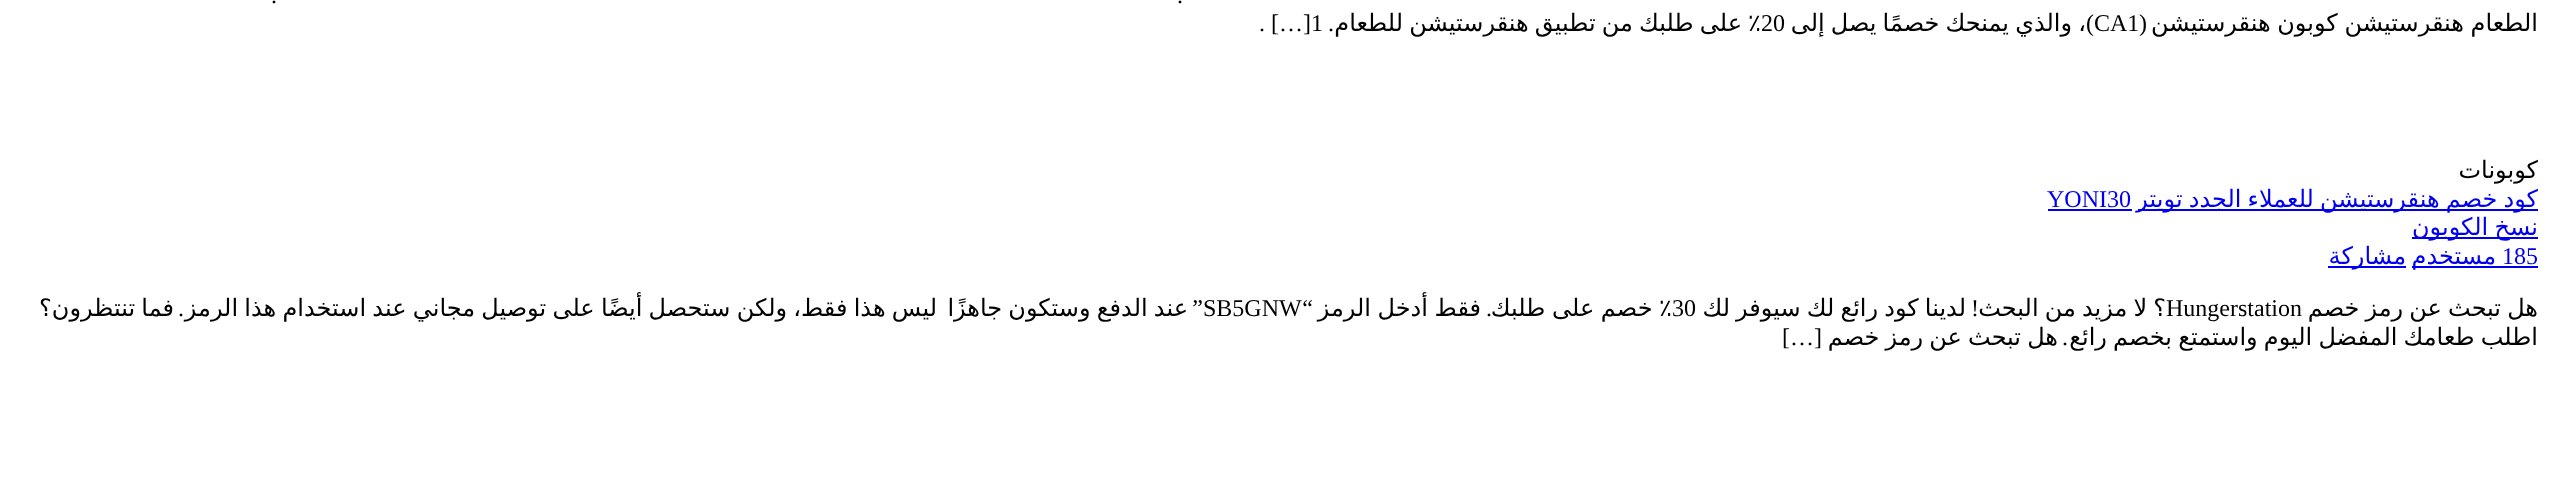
async function draw(canvas) {
  canvas.width = 2550
  canvas.height = 487
  const ctx = canvas.getContext('2d')
  ctx.miterLimit = 4
  ctx.fontKerning = 'normal'

  ctx.fillStyle = '#fff'
  ctx.fillRect(0, 0, 2550, 487)
  ctx.direction = 'rtl'
  ctx.font = '24px Liberation Serif'
  ctx.fillStyle = '#000'
  ctx.fillText('.', 1183, 3)
  ctx.fillText('.', 277, 3)
  ctx.wordSpacing = '-1px'
  ctx.font = '24px DejaVu Sans'
  ctx.fillText('الطعام هنقرستيشن كوبون هنقرستيشن', 2538, 31)
  ctx.wordSpacing = '-1.5px'
  ctx.fillText('، والذي يمنحك خصمًا يصل إلى', 2086, 31)
  ctx.fillText('٪ على طلبك من تطبيق هنقرستيشن للطعام', 1761, 31)
  ctx.wordSpacing = '0px'
  ctx.direction = 'ltr'
  ctx.font = '24px Liberation Serif'
  ctx.fillText('. […]1', 1259, 31)
  ctx.direction = 'rtl'
  ctx.fillText('(', 2147, 31)
  ctx.direction = 'ltr'
  ctx.fillText('CA1', 2094, 31)
  ctx.direction = 'rtl'
  ctx.fillText(')', 2094, 31)
  ctx.direction = 'ltr'
  ctx.fillText('20', 1761, 31)
  ctx.direction = 'rtl'
  ctx.fillText('.', 1334, 31)
  ctx.font = '24px DejaVu Sans'
  ctx.fillText('كوبونات', 2538, 178)
  ctx.fillStyle = '#00e'
  ctx.fillRect(2138, 209, 400, 2)
  ctx.wordSpacing = '-1.5px'
  ctx.fillText('كود خصم هنقرستيشن للعملاء الجدد تويتر', 2538, 207)
  ctx.wordSpacing = '0px'
  ctx.direction = 'ltr'
  ctx.font = '24px Liberation Serif'
  ctx.fillText('YONI30', 2047, 207)
  ctx.fillRect(2048, 209, 84, 2)
  ctx.fillRect(2412, 237, 126, 2)
  ctx.wordSpacing = '-1.5px'
  ctx.direction = 'rtl'
  ctx.font = '24px DejaVu Sans'
  ctx.fillText('نسخ الكوبون', 2538, 235)
  ctx.wordSpacing = '0px'
  ctx.direction = 'ltr'
  ctx.font = '24px Liberation Serif'
  ctx.fillText('185', 2502, 264)
  ctx.fillRect(2412, 266, 126, 2)
  ctx.direction = 'rtl'
  ctx.font = '24px DejaVu Sans'
  ctx.fillText('مستخدم', 2496, 264)
  ctx.fillRect(2328, 266, 78, 2)
  ctx.fillText('مشاركة', 2406, 264)
  ctx.wordSpacing = '-1.5px'
  ctx.fillStyle = '#000'
  ctx.fillText('هل تبحث عن رمز خصم', 2538, 316)
  ctx.fillText('؟ لا مزيد من البحث', 2166, 316)
  ctx.wordSpacing = '0px'
  ctx.direction = 'ltr'
  ctx.font = '24px Liberation Serif'
  ctx.fillText('Hungerstation', 2166, 316)
  ctx.direction = 'rtl'
  ctx.fillText('!', 1979, 316)
  ctx.wordSpacing = '-1.5px'
  ctx.font = '24px DejaVu Sans'
  ctx.fillText('لدينا كود رائع لك سيوفر لك', 1966, 316)
  ctx.wordSpacing = '-1px'
  ctx.fillText('٪ خصم على طلبك', 1672, 316)
  ctx.wordSpacing = '0px'
  ctx.direction = 'ltr'
  ctx.font = '24px Liberation Serif'
  ctx.fillText('30', 1672, 316)
  ctx.direction = 'rtl'
  ctx.fillText('.', 1492, 316)
  ctx.wordSpacing = '-1px'
  ctx.font = '24px DejaVu Sans'
  ctx.fillText('فقط أدخل الرمز', 1481, 316)
  ctx.wordSpacing = '0px'
  ctx.font = '24px Liberation Serif'
  ctx.fillText('“', 1313, 316)
  ctx.direction = 'ltr'
  ctx.fillText('SB5GNW', 1203, 316)
  ctx.direction = 'rtl'
  ctx.fillText('”', 1203, 316)
  ctx.wordSpacing = '-1.4px'
  ctx.font = '24px DejaVu Sans'
  ctx.fillText('عند الدفع وستكون جاهزًا', 1188, 316)
  ctx.fillText('ليس هذا فقط، ولكن ستحصل أيضًا على توصيل مجاني عند استخدام هذا الرمز', 937, 316)
  ctx.wordSpacing = '0px'
  ctx.font = '24px Liberation Serif'
  ctx.fillText('.', 184, 316)
  ctx.wordSpacing = '-1.4px'
  ctx.font = '24px DejaVu Sans'
  ctx.fillText('فما تنتظرون؟', 174, 316)
  ctx.wordSpacing = '-1.5px'
  ctx.fillText('اطلب طعامك المفضل اليوم واستمتع بخصم رائع', 2538, 345)
  ctx.wordSpacing = '0px'
  ctx.font = '24px Liberation Serif'
  ctx.fillText('.', 2068, 345)
  ctx.wordSpacing = '-1.5px'
  ctx.font = '24px DejaVu Sans'
  ctx.fillText('هل تبحث عن رمز خصم', 2058, 345)
  ctx.wordSpacing = '0px'
  ctx.font = '24px Liberation Serif'
  ctx.fillText('[…]', 1822, 345)
}

draw(document.querySelector('canvas'))
